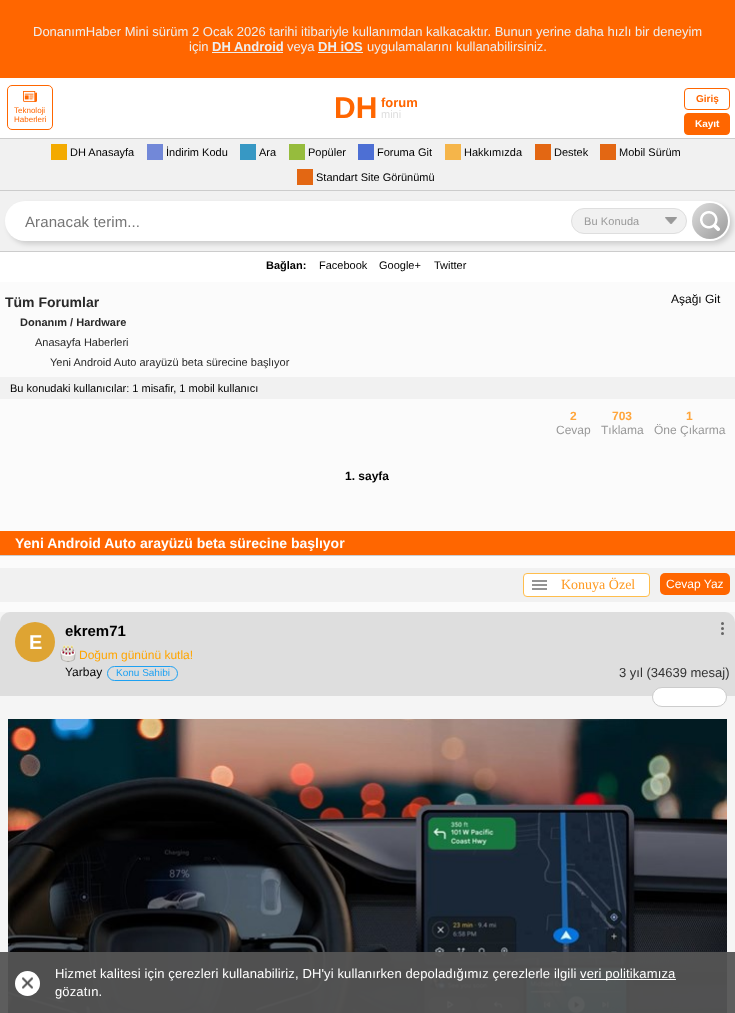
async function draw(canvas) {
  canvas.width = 735
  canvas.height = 1013
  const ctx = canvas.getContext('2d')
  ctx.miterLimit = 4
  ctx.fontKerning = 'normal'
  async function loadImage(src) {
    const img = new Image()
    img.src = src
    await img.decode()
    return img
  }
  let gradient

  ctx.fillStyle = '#f60'
  ctx.fillRect(0, 0, 735, 1013)
  ctx.font = '13px Liberation Sans'
  ctx.fillStyle = '#eee'
  ctx.fillText('DonanımHaber Mini sürüm 2 Ocak 2026 tarihi itibariyle kullanımdan kalkacaktır. Bunun yerine daha hızlı bir deneyim', 33, 36)
  ctx.fillText('için', 189, 51)
  ctx.font = 'bold 13px Liberation Sans'
  ctx.fillText('DH Android', 212, 51)
  ctx.fillRect(212, 52, 71, 1)
  ctx.font = '13px Liberation Sans'
  ctx.fillText('veya', 287, 51)
  ctx.font = 'bold 13px Liberation Sans'
  ctx.fillText('DH iOS', 318, 51)
  ctx.fillRect(318, 52, 45, 1)
  ctx.font = '13px Liberation Sans'
  ctx.fillText('uygulamalarını kullanabilirsiniz.', 367, 51)
  ctx.fillStyle = '#fff'
  ctx.fillRect(0, 78, 735, 60)
  ctx.fillStyle = '#ccc'
  ctx.fillRect(0, 138, 735, 1)
  ctx.beginPath()
  ctx.roundRect(7.5, 85.5, 45, 44, 4.5)
  ctx.strokeStyle = '#f60'
  ctx.stroke()
  ctx.drawImage(await loadImage('image0.png'), 23, 91, 14, 11)
  ctx.font = '8px Liberation Sans'
  ctx.fillStyle = '#f60'
  ctx.fillText('Teknoloji', 14, 113)
  ctx.fillText('Haberleri', 14, 122)
  ctx.font = 'bold 30px Liberation Sans'
  ctx.fillText('DH', 334, 118)
  ctx.font = 'bold 13px Liberation Sans'
  ctx.fillText('forum', 381, 107)
  ctx.font = '11px Liberation Sans'
  ctx.fillStyle = '#dedede'
  ctx.fillText('mini', 381, 118)
  ctx.beginPath()
  ctx.roundRect(684.5, 88.5, 45, 21, 3.5)
  ctx.stroke()
  ctx.font = 'bold 10px Liberation Sans'
  ctx.fillStyle = '#f60'
  ctx.fillText('Giriş', 696, 102)
  ctx.beginPath()
  ctx.roundRect(684.5, 113.5, 45, 21, 3.5)
  ctx.fill()
  ctx.stroke()
  ctx.fillStyle = '#fff'
  ctx.fillText('Kayıt', 695, 127)
  ctx.fillStyle = '#f1f1f1'
  ctx.fillRect(0, 139, 735, 51)
  ctx.fillStyle = '#f3aa00'
  ctx.fillRect(51, 144, 16, 16)
  ctx.font = '11px Liberation Sans'
  ctx.fillStyle = '#000'
  ctx.fillText('DH Anasayfa', 70, 156)
  ctx.fillStyle = '#7288d8'
  ctx.fillRect(147, 144, 16, 16)
  ctx.fillStyle = '#000'
  ctx.fillText('İndirim Kodu', 166, 156)
  ctx.fillStyle = '#3798c4'
  ctx.fillRect(240, 144, 16, 16)
  ctx.fillStyle = '#000'
  ctx.fillText('Ara', 259, 156)
  ctx.fillStyle = '#96bc3d'
  ctx.fillRect(289, 144, 16, 16)
  ctx.fillStyle = '#000'
  ctx.fillText('Popüler', 308, 156)
  ctx.fillStyle = '#4d6fd4'
  ctx.fillRect(358, 144, 16, 16)
  ctx.fillStyle = '#000'
  ctx.fillText('Foruma Git', 377, 156)
  ctx.fillStyle = '#f5b54a'
  ctx.fillRect(445, 144, 16, 16)
  ctx.fillStyle = '#000'
  ctx.fillText('Hakkımızda', 464, 156)
  ctx.fillStyle = '#e36713'
  ctx.fillRect(535, 144, 16, 16)
  ctx.fillStyle = '#000'
  ctx.fillText('Destek', 554, 156)
  ctx.fillStyle = '#e36713'
  ctx.fillRect(600, 144, 16, 16)
  ctx.fillStyle = '#000'
  ctx.fillText('Mobil Sürüm', 619, 156)
  ctx.fillStyle = '#e36713'
  ctx.fillRect(297, 169, 16, 16)
  ctx.fillStyle = '#000'
  ctx.fillText('Standart Site Görünümü', 316, 181)
  ctx.fillStyle = '#f1f1f1'
  ctx.fillRect(0, 191, 735, 60)
  ctx.fillStyle = '#ccc'
  ctx.fillRect(0, 190, 735, 1)
  ctx.fillRect(0, 251, 735, 1)
  ctx.fillStyle = '#fff'
  ctx.fillRect(0, 252, 735, 30)
  ctx.fillStyle = '#00000026'
  ctx.filter = 'blur(2.5px)'
  ctx.beginPath()
  ctx.roundRect(8, 204, 725, 40, 20)
  ctx.fill()
  ctx.filter = 'none'
  ctx.fillStyle = '#fff'
  ctx.beginPath()
  ctx.roundRect(5, 201, 725, 40, 20)
  ctx.fill()
  ctx.letterSpacing = '0.1px'
  ctx.font = '15px Liberation Sans'
  ctx.fillStyle = '#757575'
  ctx.fillText('Aranacak terim...', 25, 227)
  ctx.fillStyle = '#f1f1f1'
  ctx.beginPath()
  ctx.roundRect(571.5, 208.5, 115, 25, 12.5)
  ctx.fill()
  ctx.strokeStyle = '#dedede'
  ctx.stroke()
  ctx.font = '11px Liberation Sans'
  ctx.fillStyle = '#999'
  ctx.fillText('Bu Konuda', 584, 225)
  ctx.drawImage(await loadImage('image1.png'), 665, 217, 12, 7)
  gradient = ctx.createLinearGradient(692, 203, 728, 239)
  gradient.addColorStop(0, '#dedede')
  gradient.addColorStop(1, '#999')
  ctx.fillStyle = gradient
  ctx.beginPath()
  ctx.arc(710, 221, 18, 0, 2 * Math.PI)
  ctx.fill()
  ctx.drawImage(await loadImage('image2.png'), 700, 211, 20, 20)
  ctx.letterSpacing = '0px'
  ctx.font = 'bold 11px Liberation Sans'
  ctx.fillStyle = '#000'
  ctx.fillText('Bağlan:', 266, 269)
  ctx.font = '11px Liberation Sans'
  ctx.fillText('Facebook', 319, 269)
  ctx.fillText('Google+', 379, 269)
  ctx.fillText('Twitter', 434, 269)
  ctx.fillStyle = '#fbfbfb'
  ctx.fillRect(0, 282, 735, 330)
  ctx.font = 'bold 14px Liberation Sans'
  ctx.fillStyle = '#292929'
  ctx.fillText('Tüm Forumlar', 5, 307)
  ctx.font = '12px Liberation Sans'
  ctx.fillStyle = '#000'
  ctx.fillText('Aşağı Git', 671, 303)
  ctx.font = 'bold 11px Liberation Sans'
  ctx.fillStyle = '#292929'
  ctx.fillText('Donanım / Hardware', 20, 326)
  ctx.font = '11px Liberation Sans'
  ctx.fillText('Anasayfa Haberleri', 35, 346)
  ctx.fillText('Yeni Android Auto arayüzü beta sürecine başlıyor', 50, 366)
  ctx.fillStyle = '#f1f1f1'
  ctx.fillRect(0, 377, 735, 22)
  ctx.fillStyle = '#000'
  ctx.fillText('Bu konudaki kullanıcılar: 1 misafir, 1 mobil kullanıcı', 10, 392)
  ctx.font = 'bold 12px Liberation Sans'
  ctx.fillStyle = '#ffa53a'
  ctx.fillText('2', 570, 420)
  ctx.font = '12px Liberation Sans'
  ctx.fillStyle = '#999'
  ctx.fillText('Cevap', 556, 434)
  ctx.font = 'bold 12px Liberation Sans'
  ctx.fillStyle = '#ffa53a'
  ctx.fillText('703', 612, 420)
  ctx.font = '12px Liberation Sans'
  ctx.fillStyle = '#999'
  ctx.fillText('Tıklama', 601, 434)
  ctx.font = 'bold 12px Liberation Sans'
  ctx.fillStyle = '#ffa53a'
  ctx.fillText('1', 686, 420)
  ctx.font = '12px Liberation Sans'
  ctx.fillStyle = '#999'
  ctx.fillText('Öne Çıkarma', 654, 434)
  ctx.font = 'bold 12px Liberation Sans'
  ctx.fillStyle = '#000'
  ctx.fillText('1. sayfa', 345, 480)
  ctx.fillStyle = '#f60'
  ctx.fillRect(0, 531, 735, 24)
  ctx.fillStyle = '#ccc'
  ctx.fillRect(0, 555, 735, 1)
  ctx.font = 'bold 14px Liberation Sans'
  ctx.fillStyle = '#fff'
  ctx.fillText('Yeni Android Auto arayüzü beta sürecine başlıyor', 15, 548)
  ctx.fillStyle = '#f1f1f1'
  ctx.fillRect(0, 568, 735, 34)
  ctx.fillStyle = '#fff'
  ctx.beginPath()
  ctx.roundRect(523.5, 573.5, 126, 23, 3.5)
  ctx.fill()
  ctx.strokeStyle = '#ffbe4d'
  ctx.stroke()
  ctx.fillStyle = '#949494'
  ctx.fillRect(532, 580, 15, 2)
  ctx.fillRect(532, 584, 15, 2)
  ctx.fillRect(532, 588, 15, 2)
  ctx.font = '14px Liberation Serif'
  ctx.fillStyle = '#ff9a22'
  ctx.fillText('Konuya Özel', 561, 589)
  ctx.fillStyle = '#f60'
  ctx.beginPath()
  ctx.roundRect(660, 573, 70, 22, 5)
  ctx.fill()
  ctx.font = '12px Liberation Sans'
  ctx.fillStyle = '#fff'
  ctx.fillText('Cevap Yaz', 666, 588)
  ctx.fillStyle = '#f5f5f5'
  ctx.fillRect(0, 612, 735, 401)
  ctx.drawImage(await loadImage('image3.png'), 8, 719, 719, 294)
  ctx.fillStyle = '#dedede'
  ctx.beginPath()
  ctx.roundRect(0, 612, 735, 84, [10, 10, 0, 0])
  ctx.fill()
  ctx.font = 'bold 15px Liberation Sans'
  ctx.fillStyle = '#000'
  ctx.fillText('ekrem71', 65, 636)
  ctx.fillStyle = '#666'
  ctx.beginPath()
  ctx.arc(722.5, 628.5, 1.5, 0, 2 * Math.PI)
  ctx.fill()
  ctx.beginPath()
  ctx.arc(722.5, 623.5, 1.5, 0, 2 * Math.PI)
  ctx.fill()
  ctx.beginPath()
  ctx.arc(722.5, 633.5, 1.5, 0, 2 * Math.PI)
  ctx.fill()
  ctx.fillStyle = '#dea433'
  ctx.beginPath()
  ctx.arc(35, 642, 20, 0, 2 * Math.PI)
  ctx.fill()
  ctx.letterSpacing = '-1px'
  ctx.font = 'bold 20px Liberation Sans'
  ctx.fillStyle = '#fff'
  ctx.fillText('E', 29, 649)
  ctx.drawImage(await loadImage('image4.png'), 60, 645, 16, 17)
  ctx.letterSpacing = '0px'
  ctx.font = '12px Liberation Sans'
  ctx.fillStyle = '#ffa500'
  ctx.fillText('Doğum gününü kutla!', 79, 659)
  ctx.fillStyle = '#000'
  ctx.fillText('Yarbay', 65, 676)
  ctx.beginPath()
  ctx.roundRect(107.5, 666.5, 70, 14, 7)
  ctx.strokeStyle = '#1da1f2'
  ctx.stroke()
  ctx.font = '10px Liberation Sans'
  ctx.fillStyle = '#1da1f2'
  ctx.fillText('Konu Sahibi', 116, 676)
  ctx.font = '13px Liberation Sans'
  ctx.fillStyle = '#333'
  ctx.fillText('3 yıl (34639 mesaj)', 619, 677)
  ctx.fillStyle = '#fff'
  ctx.beginPath()
  ctx.roundRect(652.5, 687.5, 74, 19, 9.5)
  ctx.fill()
  ctx.strokeStyle = '#ccc'
  ctx.stroke()
  ctx.fillStyle = '#545454f2'
  ctx.fillRect(0, 952, 735, 61)
  ctx.fillStyle = '#fff'
  ctx.beginPath()
  ctx.arc(27.5, 983.5, 12.5, 0, 2 * Math.PI)
  ctx.fill()
  ctx.drawImage(await loadImage('image5.png'), 22, 977, 11, 12)
  ctx.letterSpacing = '0.13px'
  ctx.fillText('Hizmet kalitesi için çerezleri kullanabiliriz, DH\'yi kullanırken depoladığımız çerezlerle ilgili', 55, 978)
  ctx.fillRect(580, 979, 96, 1)
  ctx.fillText('veri politikamıza', 580, 978)
  ctx.fillText('gözatın.', 55, 996)
}

draw(document.querySelector('canvas'))
